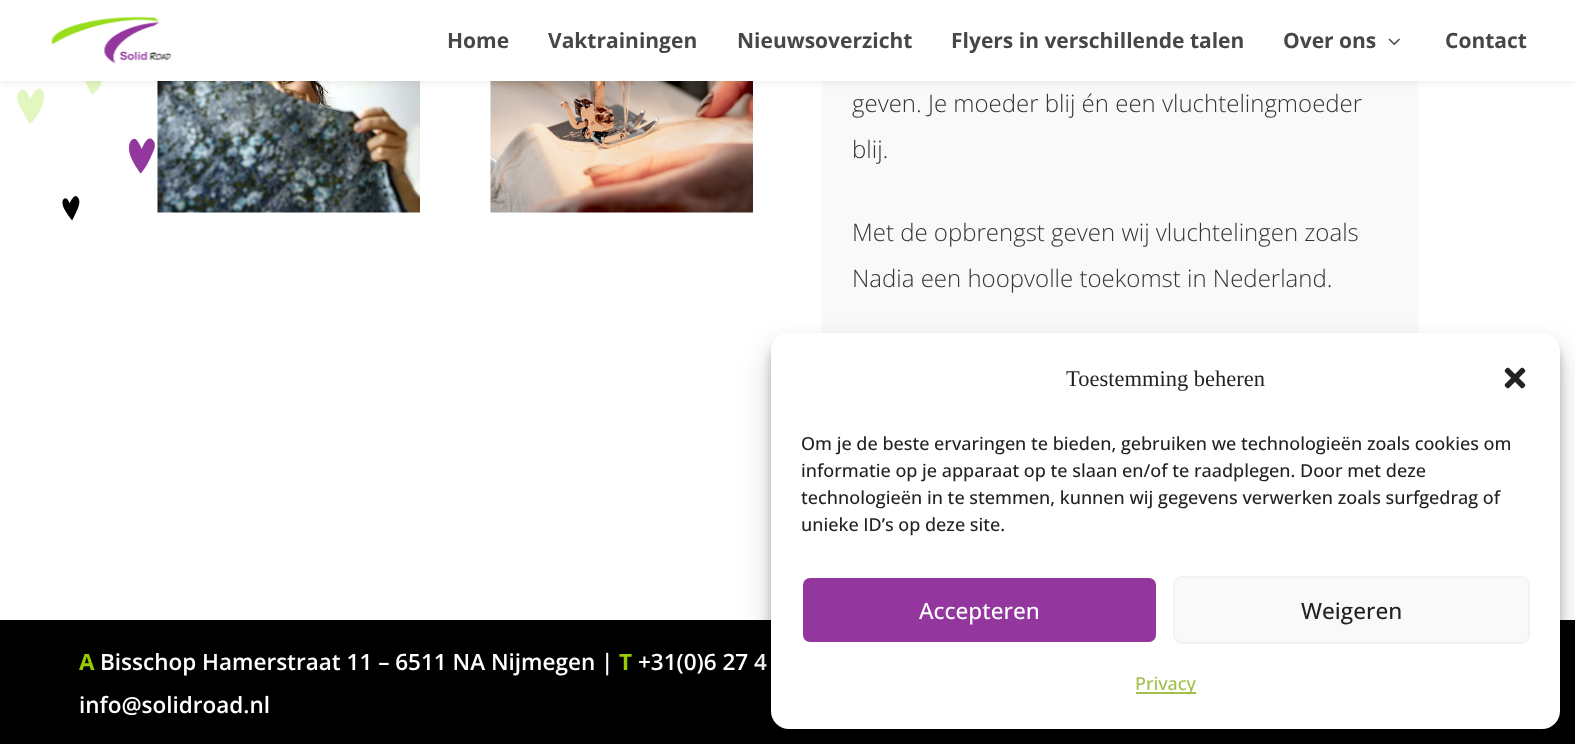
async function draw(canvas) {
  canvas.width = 1575
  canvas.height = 744
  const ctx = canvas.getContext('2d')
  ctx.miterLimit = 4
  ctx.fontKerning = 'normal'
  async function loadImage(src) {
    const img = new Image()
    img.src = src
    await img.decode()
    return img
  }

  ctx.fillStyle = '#fff'
  ctx.fillRect(0, 0, 1575, 744)
  ctx.drawImage(await loadImage('image2.png'), 17, 81, 138, 140)
  ctx.drawImage(await loadImage('image3.png'), 157, 81, 263, 132)
  ctx.drawImage(await loadImage('image4.png'), 490, 81, 263, 132)
  ctx.fillStyle = '#f9f9f9'
  ctx.fillRect(822, 81, 596, 252)
  ctx.fillStyle = '#0000001a'
  ctx.filter = 'blur(5px)'
  ctx.beginPath()
  ctx.rect(0, 0, 1575, 81)
  ctx.fill()
  ctx.filter = 'none'
  ctx.fillStyle = '#fff'
  ctx.fillRect(0, 0, 1575, 81)
  ctx.drawImage(await loadImage('image0.png'), 51, 16, 121, 48)
  ctx.font = 'bold 21px Open Sans'
  ctx.fillStyle = '#474747'
  ctx.fillText('Home', 447, 48)
  ctx.fillText('Vaktrainingen', 548, 48)
  ctx.fillText('Nieuwsoverzicht', 737, 48)
  ctx.fillText('Flyers in verschillende talen', 951, 48)
  ctx.fillText('Over ons', 1283, 48)
  ctx.drawImage(await loadImage('image1.png'), 1388, 38, 12, 7)
  ctx.fillText('Contact', 1445, 48)
  ctx.font = '300 24px Open Sans'
  ctx.fillStyle = '#353535'
  ctx.fillText('geven. Je moeder blij én een vluchtelingmoeder', 852, 112)
  ctx.fillText('blij.', 852, 158)
  ctx.fillText('Met de opbrengst geven wij vluchtelingen zoals', 852, 241)
  ctx.fillText('Nadia een hoopvolle toekomst in Nederland.', 852, 287)
  ctx.fillStyle = '#000'
  ctx.fillRect(0, 620, 1575, 124)
  ctx.font = 'bold 22.5px Open Sans'
  ctx.fillStyle = '#9c0'
  ctx.fillText('A', 79, 670)
  ctx.font = '600 22.5px Open Sans'
  ctx.fillStyle = '#fff'
  ctx.fillText('Bisschop Hamerstraat 11 – 6511 NA Nijmegen |', 100, 670)
  ctx.font = 'bold 22.5px Open Sans'
  ctx.fillStyle = '#9c0'
  ctx.fillText('T', 619, 670)
  ctx.font = '600 22.5px Open Sans'
  ctx.fillStyle = '#fff'
  ctx.fillText('+31(0)6 27 4', 638, 670)
  ctx.fillText('info@solidroad.nl', 79, 713)
  ctx.fillStyle = '#0000003b'
  ctx.filter = 'blur(4.5px)'
  ctx.beginPath()
  ctx.roundRect(771, 342, 789, 396, 18)
  ctx.fill()
  ctx.filter = 'none'
  ctx.fillStyle = '#00000030'
  ctx.filter = 'blur(15px)'
  ctx.beginPath()
  ctx.roundRect(771, 348, 789, 396, 18)
  ctx.fill()
  ctx.filter = 'none'
  ctx.fillStyle = '#fff'
  ctx.beginPath()
  ctx.roundRect(771, 333, 789, 396, 18)
  ctx.fill()
  ctx.font = '22.5px Liberation Serif'
  ctx.fillStyle = '#222'
  ctx.fillText('Toestemming beheren', 1066, 386)
  ctx.drawImage(await loadImage('image5.png'), 1504, 367, 22, 22)
  ctx.font = '500 18px Open Sans'
  ctx.fillText('Om je de beste ervaringen te bieden, gebruiken we technologieën zoals cookies om', 801, 450)
  ctx.fillText('informatie op je apparaat op te slaan en/of te raadplegen. Door met deze', 801, 477)
  ctx.fillText('technologieën in te stemmen, kunnen wij gegevens verwerken zoals surfgedrag of', 801, 504)
  ctx.fillText('unieke ID’s op deze site.', 801, 531)
  ctx.fillStyle = '#93379e'
  ctx.beginPath()
  ctx.roundRect(802, 577, 355, 66, 8)
  ctx.fill()
  ctx.strokeStyle = '#fff'
  ctx.lineWidth = 2
  ctx.stroke()
  ctx.font = '500 22.5px Open Sans'
  ctx.fillStyle = '#fff'
  ctx.fillText('Accepteren', 919, 619)
  ctx.fillStyle = '#f9f9f9'
  ctx.beginPath()
  ctx.roundRect(1174, 577, 355, 66, 8)
  ctx.fill()
  ctx.strokeStyle = '#f2f2f2'
  ctx.stroke()
  ctx.fillStyle = '#222'
  ctx.fillText('Weigeren', 1301, 619)
  ctx.fillStyle = '#a2c04a'
  ctx.fillRect(1136, 692, 60, 2)
  ctx.font = '500 18px Open Sans'
  ctx.fillText('Privacy', 1135, 690)
}

draw(document.querySelector('canvas'))
